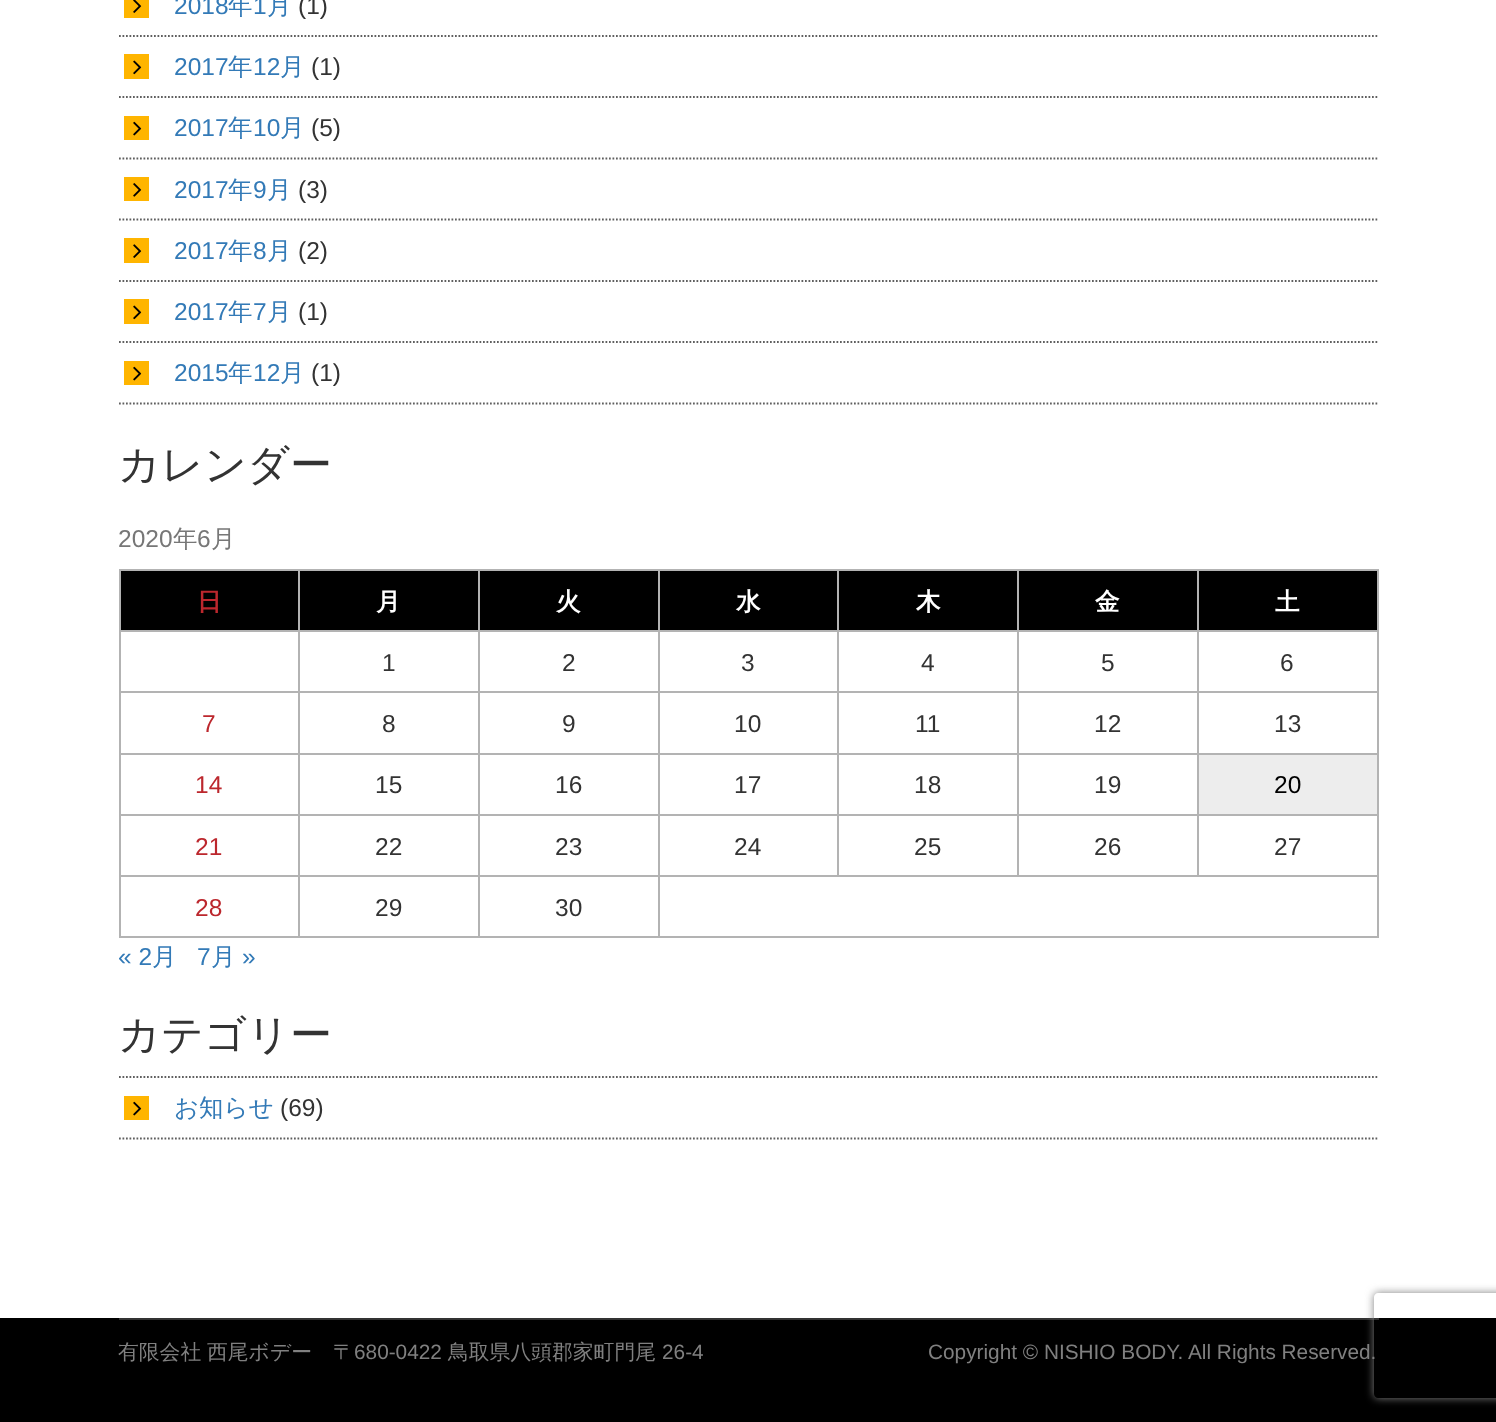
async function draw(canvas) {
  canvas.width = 1496
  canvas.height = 1422
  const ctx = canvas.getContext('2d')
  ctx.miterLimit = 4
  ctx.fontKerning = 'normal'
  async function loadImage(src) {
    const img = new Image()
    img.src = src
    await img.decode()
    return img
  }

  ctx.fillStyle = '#fff'
  ctx.fillRect(0, 0, 1496, 1422)
  ctx.beginPath()
  ctx.moveTo(119, 36)
  ctx.lineTo(1379, 36)
  ctx.strokeStyle = '#5f5f5f'
  ctx.lineWidth = 1.8
  ctx.setLineDash([1.75, 1.75])
  ctx.stroke()
  ctx.fillStyle = '#ffb500'
  ctx.fillRect(124, 0, 25, 18)
  ctx.drawImage(await loadImage('image0.png'), 133, 0, 9, 13)
  ctx.font = '24.5px Liberation Sans'
  ctx.fillStyle = '#337ab7'
  ctx.fillText('2018', 174, 14)
  ctx.font = '500 24.5px WenQuanYi Zen Hei'
  ctx.fillText('年', 228, 14)
  ctx.font = '24.5px Liberation Sans'
  ctx.fillText('1', 253, 14)
  ctx.font = '500 24.5px WenQuanYi Zen Hei'
  ctx.fillText('月', 267, 14)
  ctx.font = '24.5px Liberation Sans'
  ctx.fillStyle = '#333'
  ctx.fillText('(1)', 298, 14)
  ctx.beginPath()
  ctx.moveTo(119, 97)
  ctx.lineTo(1379, 97)
  ctx.stroke()
  ctx.fillStyle = '#ffb500'
  ctx.fillRect(124, 54, 25, 25)
  ctx.drawImage(await loadImage('image1.png'), 133, 60, 9, 15)
  ctx.fillStyle = '#337ab7'
  ctx.fillText('2017', 174, 75)
  ctx.font = '500 24.5px WenQuanYi Zen Hei'
  ctx.fillText('年', 228, 75)
  ctx.font = '24.5px Liberation Sans'
  ctx.fillText('12', 253, 75)
  ctx.font = '500 24.5px WenQuanYi Zen Hei'
  ctx.fillText('月', 280, 75)
  ctx.font = '24.5px Liberation Sans'
  ctx.fillStyle = '#333'
  ctx.fillText('(1)', 311, 75)
  ctx.beginPath()
  ctx.moveTo(119, 158.5)
  ctx.lineTo(1379, 158.5)
  ctx.stroke()
  ctx.fillStyle = '#ffb500'
  ctx.fillRect(124, 116, 25, 24)
  ctx.drawImage(await loadImage('image2.png'), 133, 121, 9, 15)
  ctx.fillStyle = '#337ab7'
  ctx.fillText('2017', 174, 136)
  ctx.font = '500 24.5px WenQuanYi Zen Hei'
  ctx.fillText('年', 228, 136)
  ctx.font = '24.5px Liberation Sans'
  ctx.fillText('10', 253, 136)
  ctx.font = '500 24.5px WenQuanYi Zen Hei'
  ctx.fillText('月', 280, 136)
  ctx.font = '24.5px Liberation Sans'
  ctx.fillStyle = '#333'
  ctx.fillText('(5)', 311, 136)
  ctx.beginPath()
  ctx.moveTo(119, 219.5)
  ctx.lineTo(1379, 219.5)
  ctx.stroke()
  ctx.fillStyle = '#ffb500'
  ctx.fillRect(124, 177, 25, 24)
  ctx.drawImage(await loadImage('image3.png'), 133, 183, 9, 14)
  ctx.fillStyle = '#337ab7'
  ctx.fillText('2017', 174, 198)
  ctx.font = '500 24.5px WenQuanYi Zen Hei'
  ctx.fillText('年', 228, 198)
  ctx.font = '24.5px Liberation Sans'
  ctx.fillText('9', 253, 198)
  ctx.font = '500 24.5px WenQuanYi Zen Hei'
  ctx.fillText('月', 267, 198)
  ctx.font = '24.5px Liberation Sans'
  ctx.fillStyle = '#333'
  ctx.fillText('(3)', 298, 198)
  ctx.beginPath()
  ctx.moveTo(119, 281)
  ctx.lineTo(1379, 281)
  ctx.stroke()
  ctx.fillStyle = '#ffb500'
  ctx.fillRect(124, 238, 25, 25)
  ctx.drawImage(await loadImage('image4.png'), 133, 244, 9, 14)
  ctx.fillStyle = '#337ab7'
  ctx.fillText('2017', 174, 259)
  ctx.font = '500 24.5px WenQuanYi Zen Hei'
  ctx.fillText('年', 228, 259)
  ctx.font = '24.5px Liberation Sans'
  ctx.fillText('8', 253, 259)
  ctx.font = '500 24.5px WenQuanYi Zen Hei'
  ctx.fillText('月', 267, 259)
  ctx.font = '24.5px Liberation Sans'
  ctx.fillStyle = '#333'
  ctx.fillText('(2)', 298, 259)
  ctx.beginPath()
  ctx.moveTo(119, 342)
  ctx.lineTo(1379, 342)
  ctx.stroke()
  ctx.fillStyle = '#ffb500'
  ctx.fillRect(124, 299, 25, 25)
  ctx.drawImage(await loadImage('image1.png'), 133, 305, 9, 15)
  ctx.fillStyle = '#337ab7'
  ctx.fillText('2017', 174, 320)
  ctx.font = '500 24.5px WenQuanYi Zen Hei'
  ctx.fillText('年', 228, 320)
  ctx.font = '24.5px Liberation Sans'
  ctx.fillText('7', 253, 320)
  ctx.font = '500 24.5px WenQuanYi Zen Hei'
  ctx.fillText('月', 267, 320)
  ctx.font = '24.5px Liberation Sans'
  ctx.fillStyle = '#333'
  ctx.fillText('(1)', 298, 320)
  ctx.beginPath()
  ctx.moveTo(119, 403.5)
  ctx.lineTo(1379, 403.5)
  ctx.stroke()
  ctx.fillStyle = '#ffb500'
  ctx.fillRect(124, 361, 25, 24)
  ctx.drawImage(await loadImage('image2.png'), 133, 366, 9, 15)
  ctx.fillStyle = '#337ab7'
  ctx.fillText('2015', 174, 381)
  ctx.font = '500 24.5px WenQuanYi Zen Hei'
  ctx.fillText('年', 228, 381)
  ctx.font = '24.5px Liberation Sans'
  ctx.fillText('12', 253, 381)
  ctx.font = '500 24.5px WenQuanYi Zen Hei'
  ctx.fillText('月', 280, 381)
  ctx.font = '24.5px Liberation Sans'
  ctx.fillStyle = '#333'
  ctx.fillText('(1)', 311, 381)
  ctx.font = '500 42px WenQuanYi Zen Hei'
  ctx.fillText('カレンダー', 118, 479)
  ctx.font = '24.5px Liberation Sans'
  ctx.fillStyle = '#777'
  ctx.fillText('2020', 118, 547)
  ctx.font = '500 24.5px WenQuanYi Zen Hei'
  ctx.fillText('年', 173, 547)
  ctx.font = '24.5px Liberation Sans'
  ctx.fillText('6', 197, 547)
  ctx.font = '500 24.5px WenQuanYi Zen Hei'
  ctx.fillText('月', 211, 547)
  ctx.fillStyle = '#000'
  ctx.fillRect(121, 571, 177, 59)
  ctx.fillStyle = '#b3b3b3'
  ctx.fillRect(1197, 569, 182, 2)
  ctx.fillRect(1197, 630, 182, 2)
  ctx.fillRect(1197, 691, 182, 2)
  ctx.fillRect(1197, 753, 182, 2)
  ctx.fillRect(1197, 814, 182, 2)
  ctx.fillRect(658, 875, 721, 2)
  ctx.fillRect(1197, 814, 2, 63)
  ctx.fillRect(1017, 814, 182, 2)
  ctx.fillRect(1197, 753, 2, 63)
  ctx.fillRect(1017, 753, 182, 2)
  ctx.fillRect(1197, 691, 2, 63)
  ctx.fillRect(1017, 691, 182, 2)
  ctx.fillRect(1197, 630, 2, 63)
  ctx.fillRect(1017, 630, 182, 2)
  ctx.fillRect(1197, 569, 2, 63)
  ctx.fillRect(1017, 569, 182, 2)
  ctx.fillRect(1017, 814, 2, 63)
  ctx.fillRect(837, 814, 182, 2)
  ctx.fillRect(1017, 753, 2, 63)
  ctx.fillRect(837, 753, 182, 2)
  ctx.fillRect(1017, 691, 2, 63)
  ctx.fillRect(837, 691, 182, 2)
  ctx.fillRect(1017, 630, 2, 63)
  ctx.fillRect(837, 630, 182, 2)
  ctx.fillRect(1017, 569, 2, 63)
  ctx.fillRect(837, 569, 182, 2)
  ctx.fillRect(837, 814, 2, 63)
  ctx.fillRect(658, 814, 180, 2)
  ctx.fillRect(837, 753, 2, 63)
  ctx.fillRect(658, 753, 180, 2)
  ctx.fillRect(837, 691, 2, 63)
  ctx.fillRect(658, 691, 180, 2)
  ctx.fillRect(837, 630, 2, 63)
  ctx.fillRect(658, 630, 180, 2)
  ctx.fillRect(837, 569, 2, 63)
  ctx.fillRect(658, 569, 180, 2)
  ctx.fillRect(1377, 875, 2, 63)
  ctx.fillRect(658, 936, 721, 2)
  ctx.fillRect(658, 875, 2, 63)
  ctx.fillRect(478, 875, 182, 2)
  ctx.fillRect(658, 814, 2, 63)
  ctx.fillRect(478, 814, 182, 2)
  ctx.fillRect(658, 753, 2, 63)
  ctx.fillRect(478, 753, 182, 2)
  ctx.fillRect(658, 691, 2, 63)
  ctx.fillRect(478, 691, 182, 2)
  ctx.fillRect(658, 630, 2, 63)
  ctx.fillRect(478, 630, 182, 2)
  ctx.fillRect(658, 569, 2, 63)
  ctx.fillRect(478, 569, 182, 2)
  ctx.fillRect(478, 936, 182, 2)
  ctx.fillRect(478, 875, 2, 63)
  ctx.fillRect(298, 875, 182, 2)
  ctx.fillRect(478, 814, 2, 63)
  ctx.fillRect(298, 814, 182, 2)
  ctx.fillRect(478, 753, 2, 63)
  ctx.fillRect(298, 753, 182, 2)
  ctx.fillRect(478, 691, 2, 63)
  ctx.fillRect(298, 691, 182, 2)
  ctx.fillRect(478, 630, 2, 63)
  ctx.fillRect(298, 630, 182, 2)
  ctx.fillRect(478, 569, 2, 63)
  ctx.fillRect(298, 569, 182, 2)
  ctx.fillRect(298, 936, 182, 2)
  ctx.fillRect(298, 875, 2, 63)
  ctx.fillRect(119, 875, 180, 2)
  ctx.fillRect(298, 814, 2, 63)
  ctx.fillRect(119, 814, 180, 2)
  ctx.fillRect(298, 753, 2, 63)
  ctx.fillRect(119, 753, 180, 2)
  ctx.fillRect(298, 691, 2, 63)
  ctx.fillRect(119, 691, 180, 2)
  ctx.fillRect(298, 630, 2, 63)
  ctx.fillRect(119, 630, 180, 2)
  ctx.fillRect(298, 569, 2, 63)
  ctx.fillRect(119, 569, 180, 2)
  ctx.fillRect(119, 936, 180, 2)
  ctx.fillRect(119, 875, 2, 63)
  ctx.fillRect(119, 814, 2, 63)
  ctx.fillRect(119, 753, 2, 63)
  ctx.fillRect(119, 691, 2, 63)
  ctx.fillRect(119, 630, 2, 63)
  ctx.fillRect(119, 569, 2, 63)
  ctx.font = 'bold 24.5px WenQuanYi Zen Hei'
  ctx.fillStyle = '#bc272d'
  ctx.fillText('日', 197, 610)
  ctx.fillStyle = '#000'
  ctx.fillRect(300, 571, 178, 59)
  ctx.fillStyle = '#fff'
  ctx.fillText('月', 376, 610)
  ctx.fillStyle = '#000'
  ctx.fillRect(480, 571, 178, 59)
  ctx.fillStyle = '#fff'
  ctx.fillText('火', 556, 610)
  ctx.fillStyle = '#000'
  ctx.fillRect(660, 571, 177, 59)
  ctx.fillStyle = '#fff'
  ctx.fillText('水', 736, 610)
  ctx.fillStyle = '#000'
  ctx.fillRect(839, 571, 178, 59)
  ctx.fillStyle = '#fff'
  ctx.fillText('木', 916, 610)
  ctx.fillStyle = '#000'
  ctx.fillRect(1019, 571, 178, 59)
  ctx.fillStyle = '#fff'
  ctx.fillText('金', 1095, 610)
  ctx.fillStyle = '#000'
  ctx.fillRect(1199, 571, 178, 59)
  ctx.fillStyle = '#b3b3b3'
  ctx.fillRect(1377, 814, 2, 63)
  ctx.fillRect(1377, 753, 2, 63)
  ctx.fillRect(1377, 691, 2, 63)
  ctx.fillRect(1377, 630, 2, 63)
  ctx.fillRect(1377, 569, 2, 63)
  ctx.fillStyle = '#fff'
  ctx.fillText('土', 1275, 610)
  ctx.font = '24.5px Liberation Sans'
  ctx.fillStyle = '#333'
  ctx.fillText('1', 382, 671)
  ctx.fillText('2', 562, 671)
  ctx.fillText('3', 741, 671)
  ctx.fillText('4', 921, 671)
  ctx.fillText('5', 1101, 671)
  ctx.fillText('6', 1280, 671)
  ctx.fillStyle = '#bc272d'
  ctx.fillText('7', 202, 732)
  ctx.fillStyle = '#333'
  ctx.fillText('8', 382, 732)
  ctx.fillText('9', 562, 732)
  ctx.fillText('10', 734, 732)
  ctx.fillText('11', 915, 732)
  ctx.fillText('12', 1094, 732)
  ctx.fillText('13', 1274, 732)
  ctx.fillStyle = '#bc272d'
  ctx.fillText('14', 195, 793)
  ctx.fillStyle = '#333'
  ctx.fillText('15', 375, 793)
  ctx.fillText('16', 555, 793)
  ctx.fillText('17', 734, 793)
  ctx.fillText('18', 914, 793)
  ctx.fillText('19', 1094, 793)
  ctx.fillStyle = '#ededed'
  ctx.fillRect(1199, 755, 178, 59)
  ctx.fillStyle = '#000'
  ctx.fillText('20', 1274, 793)
  ctx.fillStyle = '#bc272d'
  ctx.fillText('21', 195, 855)
  ctx.fillStyle = '#333'
  ctx.fillText('22', 375, 855)
  ctx.fillText('23', 555, 855)
  ctx.fillText('24', 734, 855)
  ctx.fillText('25', 914, 855)
  ctx.fillText('26', 1094, 855)
  ctx.fillText('27', 1274, 855)
  ctx.fillStyle = '#bc272d'
  ctx.fillText('28', 195, 916)
  ctx.fillStyle = '#333'
  ctx.fillText('29', 375, 916)
  ctx.fillText('30', 555, 916)
  ctx.fillStyle = '#337ab7'
  ctx.fillText('« 2', 118, 965)
  ctx.font = '500 24.5px WenQuanYi Zen Hei'
  ctx.fillText('月', 152, 965)
  ctx.font = '24.5px Liberation Sans'
  ctx.fillText('7', 197, 965)
  ctx.font = '500 24.5px WenQuanYi Zen Hei'
  ctx.fillText('月', 211, 965)
  ctx.font = '24.5px Liberation Sans'
  ctx.fillText('»', 242, 965)
  ctx.font = '500 42px WenQuanYi Zen Hei'
  ctx.fillStyle = '#333'
  ctx.fillText('カテゴリー', 118, 1049)
  ctx.beginPath()
  ctx.moveTo(119, 1077)
  ctx.lineTo(1379, 1077)
  ctx.stroke()
  ctx.beginPath()
  ctx.moveTo(119, 1138.5)
  ctx.lineTo(1379, 1138.5)
  ctx.stroke()
  ctx.fillStyle = '#ffb500'
  ctx.fillRect(124, 1096, 25, 24)
  ctx.drawImage(await loadImage('image2.png'), 133, 1101, 9, 15)
  ctx.font = '500 24.5px WenQuanYi Zen Hei'
  ctx.fillStyle = '#337ab7'
  ctx.fillText('お知らせ', 174, 1116)
  ctx.font = '24.5px Liberation Sans'
  ctx.fillStyle = '#333'
  ctx.fillText('(69)', 280, 1116)
  ctx.fillStyle = '#000'
  ctx.fillRect(0, 1318, 1496, 104)
  ctx.fillStyle = '#333'
  ctx.fillRect(119, 1318, 1260, 2)
  ctx.font = '500 20.8px WenQuanYi Zen Hei'
  ctx.fillStyle = '#808080'
  ctx.fillText('有限会社', 118, 1359)
  ctx.fillText('西尾ボデー', 207, 1359)
  ctx.fillText('〒', 333, 1359)
  ctx.font = '20.8px Liberation Sans'
  ctx.fillText('680-0422', 354, 1359)
  ctx.font = '500 20.8px WenQuanYi Zen Hei'
  ctx.fillText('鳥取県八頭郡家町門尾', 448, 1359)
  ctx.font = '20.8px Liberation Sans'
  ctx.fillText('26-4', 662, 1359)
  ctx.fillText('Copyright © NISHIO BODY. All Rights Reserved.', 928, 1359)
  ctx.save()
  ctx.beginPath()
  ctx.moveTo(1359, 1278)
  ctx.lineTo(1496, 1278)
  ctx.lineTo(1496, 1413)
  ctx.lineTo(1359, 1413)
  ctx.closePath()
  ctx.moveTo(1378, 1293)
  ctx.lineTo(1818, 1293)
  ctx.bezierCurveTo(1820, 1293, 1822, 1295, 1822, 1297)
  ctx.lineTo(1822, 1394)
  ctx.bezierCurveTo(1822, 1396, 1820, 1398, 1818, 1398)
  ctx.lineTo(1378, 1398)
  ctx.bezierCurveTo(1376, 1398, 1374, 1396, 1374, 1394)
  ctx.lineTo(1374, 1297)
  ctx.bezierCurveTo(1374, 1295, 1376, 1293, 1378, 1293)
  ctx.closePath()
  ctx.clip('evenodd')
  ctx.filter = 'blur(4.5px)'
  ctx.beginPath()
  ctx.roundRect(1374, 1293, 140, 105, 4)
  ctx.fill()
  ctx.filter = 'none'
  ctx.restore()
}

draw(document.querySelector('canvas'))
